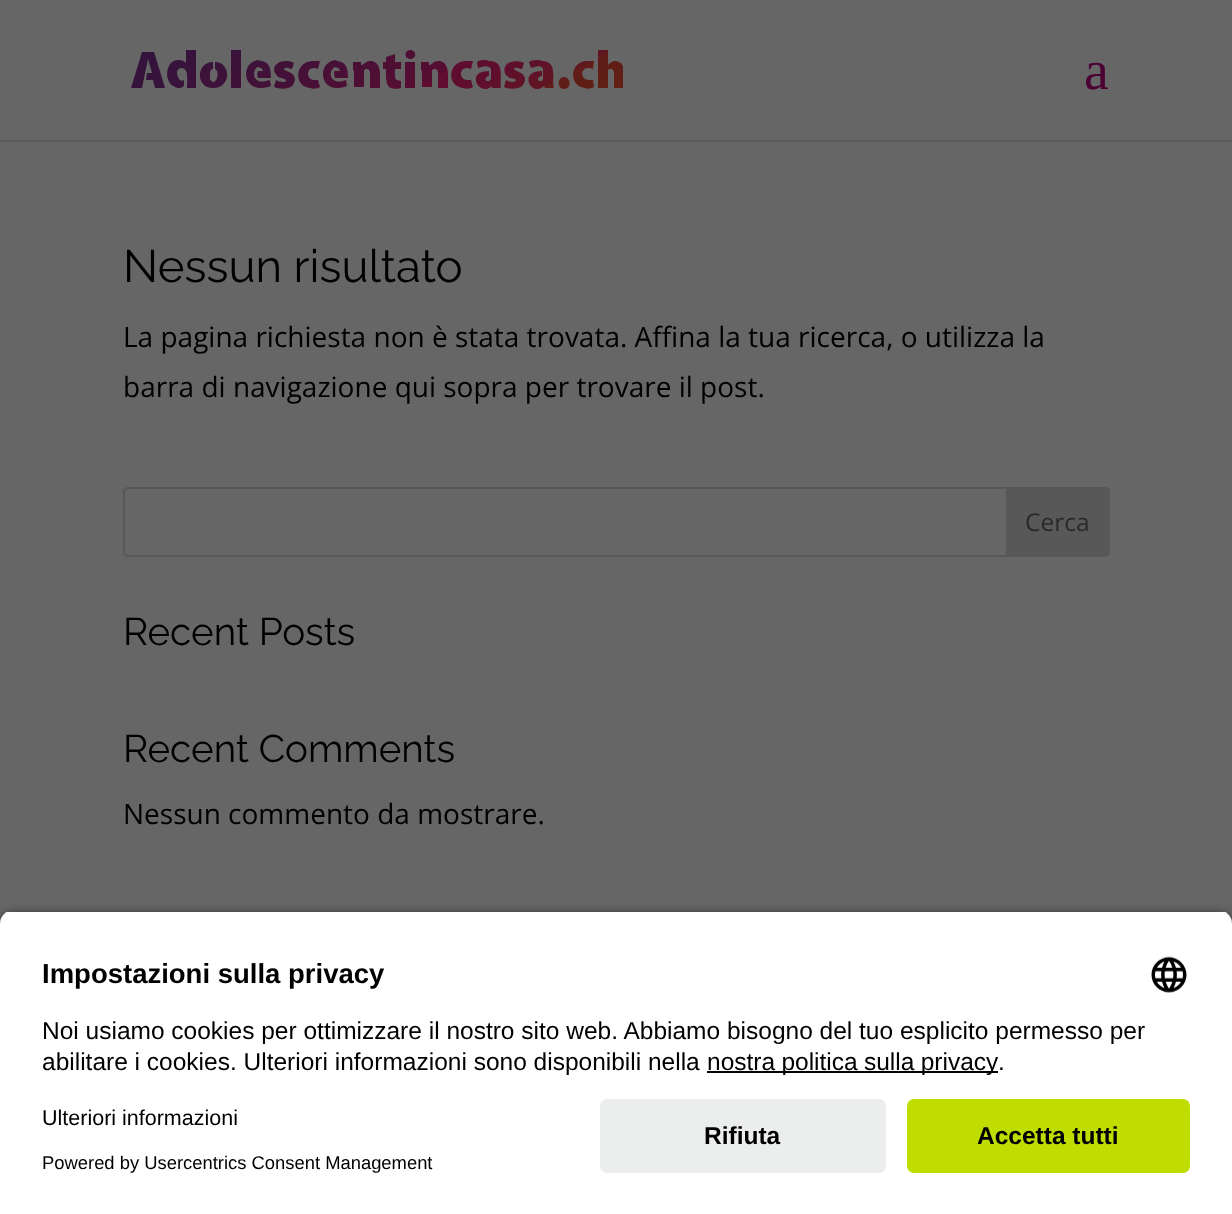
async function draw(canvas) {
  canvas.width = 1232
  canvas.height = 1214
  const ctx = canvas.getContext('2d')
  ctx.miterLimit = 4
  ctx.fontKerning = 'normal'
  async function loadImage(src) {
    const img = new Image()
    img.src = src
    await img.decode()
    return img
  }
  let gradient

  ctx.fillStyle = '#666'
  ctx.fillRect(0, 0, 1232, 1214)
  ctx.fillStyle = '#5c5c5c'
  ctx.fillRect(0, 140, 1232, 2)
  ctx.save()
  ctx.beginPath()
  ctx.rect(131, 32, 492, 77)
  ctx.clip()
  gradient = ctx.createLinearGradient(297, -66, 457, 212)
  gradient.addColorStop(0, '#2d153e')
  gradient.addColorStop(0, '#30143d')
  gradient.addColorStop(0.2, '#38133b')
  gradient.addColorStop(0.4, '#461037')
  gradient.addColorStop(0.6, '#580d32')
  gradient.addColorStop(0.6, '#5f0c30')
  gradient.addColorStop(0.7, '#5f0f2c')
  gradient.addColorStop(0.8, '#601721')
  gradient.addColorStop(0.8, '#601c19')
  gradient.addColorStop(0.9, '#602014')
  gradient.addColorStop(1, '#602112')
  gradient.addColorStop(1, '#60240e')
  ctx.fillStyle = gradient
  ctx.beginPath()
  ctx.moveTo(196, 50)
  ctx.lineTo(186, 50)
  ctx.lineTo(186, 63)
  ctx.bezierCurveTo(184, 61, 182, 60, 179, 60)
  ctx.bezierCurveTo(165, 59, 163, 83, 175, 87)
  ctx.bezierCurveTo(178, 89, 182, 88, 184, 86)
  ctx.lineTo(184, 80)
  ctx.bezierCurveTo(179, 83, 177, 75, 177, 72)
  ctx.bezierCurveTo(178, 67, 184, 67, 186, 71)
  ctx.bezierCurveTo(188, 75, 187, 83, 187, 88)
  ctx.lineTo(196, 88)
  ctx.closePath()
  ctx.moveTo(231, 50)
  ctx.lineTo(231, 88)
  ctx.lineTo(241, 88)
  ctx.lineTo(241, 50)
  ctx.closePath()
  ctx.moveTo(410, 59)
  ctx.bezierCurveTo(417, 59, 417, 50, 410, 50)
  ctx.bezierCurveTo(404, 50, 404, 59, 410, 59)
  ctx.closePath()
  ctx.moveTo(598, 50)
  ctx.lineTo(598, 88)
  ctx.lineTo(608, 88)
  ctx.lineTo(608, 71)
  ctx.bezierCurveTo(608, 70, 608, 69, 611, 69)
  ctx.bezierCurveTo(613, 69, 614, 71, 614, 74)
  ctx.lineTo(614, 88)
  ctx.lineTo(624, 88)
  ctx.lineTo(624, 78)
  ctx.bezierCurveTo(624, 71, 625, 61, 614, 61)
  ctx.bezierCurveTo(612, 62, 609, 63, 608, 65)
  ctx.lineTo(608, 50)
  ctx.closePath()
  ctx.moveTo(154, 52)
  ctx.lineTo(142, 52)
  ctx.lineTo(131, 88)
  ctx.lineTo(142, 88)
  ctx.lineTo(148, 59)
  ctx.lineTo(152, 73)
  ctx.lineTo(147, 73)
  ctx.lineTo(146, 80)
  ctx.lineTo(153, 80)
  ctx.lineTo(155, 88)
  ctx.lineTo(165, 88)
  ctx.lineTo(155, 55)
  ctx.closePath()
  ctx.moveTo(395, 54)
  ctx.lineTo(386, 57)
  ctx.lineTo(386, 62)
  ctx.lineTo(383, 62)
  ctx.lineTo(383, 69)
  ctx.lineTo(386, 69)
  ctx.bezierCurveTo(386, 81, 385, 92, 401, 88)
  ctx.lineTo(401, 81)
  ctx.lineTo(397, 80)
  ctx.bezierCurveTo(394, 79, 395, 71, 395, 69)
  ctx.lineTo(401, 69)
  ctx.lineTo(401, 62)
  ctx.lineTo(395, 62)
  ctx.closePath()
  ctx.moveTo(488, 61)
  ctx.lineTo(487, 60)
  ctx.bezierCurveTo(483, 60, 480, 60, 477, 62)
  ctx.lineTo(478, 68)
  ctx.bezierCurveTo(481, 67, 489, 64, 491, 69)
  ctx.lineTo(491, 74)
  ctx.bezierCurveTo(491, 77, 492, 82, 487, 81)
  ctx.bezierCurveTo(484, 81, 486, 76, 489, 76)
  ctx.lineTo(489, 71)
  ctx.bezierCurveTo(464, 71, 480, 98, 492, 86)
  ctx.lineTo(492, 88)
  ctx.lineTo(501, 88)
  ctx.bezierCurveTo(499, 78, 506, 61, 489, 61)
  ctx.closePath()
  ctx.moveTo(541, 61)
  ctx.lineTo(540, 60)
  ctx.bezierCurveTo(536, 60, 532, 60, 529, 62)
  ctx.lineTo(531, 68)
  ctx.bezierCurveTo(534, 67, 542, 64, 543, 69)
  ctx.lineTo(543, 74)
  ctx.bezierCurveTo(543, 77, 544, 82, 540, 81)
  ctx.bezierCurveTo(536, 81, 538, 76, 542, 76)
  ctx.lineTo(542, 71)
  ctx.bezierCurveTo(517, 71, 532, 98, 544, 86)
  ctx.lineTo(545, 88)
  ctx.lineTo(554, 88)
  ctx.bezierCurveTo(551, 78, 559, 61, 541, 61)
  ctx.closePath()
  ctx.moveTo(259, 61)
  ctx.lineTo(260, 60)
  ctx.bezierCurveTo(239, 60, 241, 97, 271, 86)
  ctx.lineTo(270, 80)
  ctx.bezierCurveTo(266, 81, 260, 83, 257, 80)
  ctx.bezierCurveTo(253, 78, 253, 69, 258, 67)
  ctx.lineTo(261, 68)
  ctx.bezierCurveTo(262, 69, 263, 70, 263, 71)
  ctx.lineTo(258, 71)
  ctx.bezierCurveTo(257, 73, 257, 76, 258, 78)
  ctx.lineTo(271, 78)
  ctx.bezierCurveTo(271, 70, 270, 61, 260, 61)
  ctx.closePath()
  ctx.moveTo(336, 61)
  ctx.lineTo(337, 60)
  ctx.bezierCurveTo(316, 60, 318, 97, 347, 86)
  ctx.lineTo(346, 80)
  ctx.bezierCurveTo(343, 81, 337, 83, 334, 80)
  ctx.bezierCurveTo(329, 78, 330, 69, 335, 67)
  ctx.lineTo(338, 68)
  ctx.bezierCurveTo(339, 69, 340, 70, 340, 71)
  ctx.lineTo(334, 71)
  ctx.bezierCurveTo(334, 73, 334, 76, 335, 78)
  ctx.lineTo(348, 78)
  ctx.bezierCurveTo(348, 70, 347, 61, 336, 61)
  ctx.closePath()
  ctx.moveTo(320, 87)
  ctx.lineTo(318, 80)
  ctx.lineTo(314, 80)
  ctx.bezierCurveTo(305, 80, 306, 64, 318, 69)
  ctx.lineTo(320, 61)
  ctx.bezierCurveTo(317, 61, 315, 61, 312, 61)
  ctx.bezierCurveTo(295, 62, 293, 86, 310, 88)
  ctx.bezierCurveTo(313, 89, 317, 89, 320, 87)
  ctx.closePath()
  ctx.moveTo(473, 87)
  ctx.lineTo(471, 80)
  ctx.lineTo(467, 80)
  ctx.bezierCurveTo(458, 80, 459, 64, 471, 69)
  ctx.lineTo(473, 61)
  ctx.bezierCurveTo(470, 61, 468, 61, 465, 61)
  ctx.bezierCurveTo(448, 62, 446, 86, 463, 88)
  ctx.bezierCurveTo(466, 89, 470, 89, 473, 87)
  ctx.closePath()
  ctx.moveTo(594, 87)
  ctx.lineTo(593, 80)
  ctx.lineTo(589, 80)
  ctx.bezierCurveTo(579, 80, 580, 64, 593, 69)
  ctx.lineTo(594, 61)
  ctx.bezierCurveTo(592, 61, 589, 61, 586, 61)
  ctx.bezierCurveTo(570, 62, 568, 86, 585, 88)
  ctx.bezierCurveTo(587, 89, 591, 89, 594, 87)
  ctx.closePath()
  ctx.moveTo(276, 80)
  ctx.lineTo(276, 80)
  ctx.closePath()
  ctx.moveTo(283, 82)
  ctx.bezierCurveTo(280, 82, 278, 81, 276, 80)
  ctx.lineTo(274, 87)
  ctx.bezierCurveTo(279, 89, 284, 89, 288, 88)
  ctx.bezierCurveTo(291, 87, 293, 86, 294, 83)
  ctx.bezierCurveTo(299, 72, 283, 71, 284, 69)
  ctx.bezierCurveTo(285, 66, 291, 69, 292, 69)
  ctx.lineTo(294, 63)
  ctx.bezierCurveTo(287, 59, 274, 61, 274, 70)
  ctx.bezierCurveTo(274, 72, 276, 74, 277, 76)
  ctx.lineTo(280, 78)
  ctx.bezierCurveTo(281, 78, 287, 79, 286, 81)
  ctx.bezierCurveTo(285, 82, 284, 82, 283, 82)
  ctx.closePath()
  ctx.moveTo(353, 71)
  ctx.lineTo(354, 70)
  ctx.lineTo(354, 87)
  ctx.lineTo(364, 87)
  ctx.lineTo(364, 71)
  ctx.lineTo(365, 69)
  ctx.lineTo(367, 69)
  ctx.bezierCurveTo(371, 69, 370, 76, 370, 78)
  ctx.lineTo(370, 88)
  ctx.lineTo(380, 88)
  ctx.lineTo(380, 78)
  ctx.bezierCurveTo(380, 71, 380, 63, 372, 61)
  ctx.bezierCurveTo(370, 61, 367, 61, 365, 63)
  ctx.lineTo(362, 65)
  ctx.lineTo(361, 65)
  ctx.lineTo(361, 62)
  ctx.lineTo(353, 62)
  ctx.closePath()
  ctx.moveTo(421, 71)
  ctx.lineTo(422, 70)
  ctx.lineTo(422, 87)
  ctx.lineTo(432, 87)
  ctx.lineTo(432, 71)
  ctx.lineTo(433, 69)
  ctx.lineTo(435, 69)
  ctx.bezierCurveTo(439, 69, 438, 76, 438, 78)
  ctx.lineTo(438, 88)
  ctx.lineTo(448, 88)
  ctx.lineTo(448, 78)
  ctx.bezierCurveTo(448, 71, 448, 63, 440, 61)
  ctx.bezierCurveTo(438, 61, 435, 61, 433, 63)
  ctx.lineTo(430, 65)
  ctx.lineTo(429, 65)
  ctx.lineTo(429, 62)
  ctx.lineTo(421, 62)
  ctx.closePath()
  ctx.moveTo(506, 80)
  ctx.lineTo(504, 87)
  ctx.bezierCurveTo(508, 89, 514, 89, 518, 88)
  ctx.bezierCurveTo(521, 87, 523, 86, 524, 83)
  ctx.bezierCurveTo(529, 72, 513, 71, 514, 69)
  ctx.bezierCurveTo(515, 66, 521, 69, 522, 69)
  ctx.lineTo(524, 63)
  ctx.bezierCurveTo(520, 61, 515, 61, 511, 62)
  ctx.bezierCurveTo(508, 63, 506, 64, 505, 67)
  ctx.bezierCurveTo(503, 72, 506, 76, 510, 78)
  ctx.lineTo(515, 79)
  ctx.bezierCurveTo(518, 81, 513, 82, 512, 82)
  ctx.bezierCurveTo(510, 82, 508, 81, 506, 80)
  ctx.closePath()
  ctx.moveTo(224, 85)
  ctx.lineTo(223, 85)
  ctx.closePath()
  ctx.moveTo(213, 88)
  ctx.bezierCurveTo(232, 88, 231, 62, 215, 62)
  ctx.lineTo(215, 69)
  ctx.bezierCurveTo(218, 70, 218, 75, 217, 78)
  ctx.bezierCurveTo(216, 82, 212, 84, 210, 79)
  ctx.lineTo(210, 73)
  ctx.bezierCurveTo(210, 71, 211, 69, 213, 69)
  ctx.lineTo(213, 62)
  ctx.bezierCurveTo(196, 62, 195, 88, 213, 88)
  ctx.closePath()
  ctx.moveTo(405, 88)
  ctx.lineTo(415, 88)
  ctx.lineTo(415, 62)
  ctx.lineTo(405, 62)
  ctx.closePath()
  ctx.moveTo(564, 89)
  ctx.bezierCurveTo(572, 89, 571, 77, 564, 77)
  ctx.bezierCurveTo(557, 77, 557, 89, 564, 89)
  ctx.closePath()
  ctx.fill('evenodd')
  ctx.restore()
  ctx.font = '56px Liberation Serif'
  ctx.fillStyle = '#4c0134'
  ctx.fillText('a', 1084, 89)
  ctx.font = '45.5px Raleway'
  ctx.fillStyle = '#000'
  ctx.fillText('Nessun risultato', 123, 282)
  ctx.font = '28px Open Sans'
  ctx.fillText('La pagina richiesta non è stata trovata. Affina la tua ricerca, o utilizza la', 123, 347)
  ctx.fillText('barra di navigazione qui sopra per trovare il post.', 123, 397)
  ctx.beginPath()
  ctx.roundRect(124, 488, 985, 68, 4)
  ctx.strokeStyle = '#585858'
  ctx.lineWidth = 2
  ctx.stroke()
  ctx.fillStyle = '#585858'
  ctx.beginPath()
  ctx.roundRect(1006, 487, 104, 70, [0, 5, 5, 0])
  ctx.fill()
  ctx.font = '24.5px Open Sans'
  ctx.fillStyle = '#292929'
  ctx.fillText('Cerca', 1025, 531)
  ctx.font = '38.5px Raleway'
  ctx.fillStyle = '#000'
  ctx.fillText('Recent Posts', 123, 645)
  ctx.fillText('Recent Comments', 123, 762)
  ctx.font = '28px Open Sans'
  ctx.fillText('Nessun commento da mostrare.', 123, 824)
  ctx.fillStyle = '#000000cc'
  ctx.filter = 'blur(6px)'
  ctx.beginPath()
  ctx.roundRect(0, 915, 1232, 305, 14)
  ctx.fill()
  ctx.filter = 'none'
  ctx.save()
  ctx.beginPath()
  ctx.roundRect(0, 910, 1232, 175, [14, 14, 0, 0])
  ctx.clip()
  ctx.fillStyle = '#fff'
  ctx.fillRect(0, 912, 1232, 173)
  ctx.restore()
  ctx.font = 'bold 27.5px Liberation Sans'
  ctx.fillStyle = '#000'
  ctx.fillText('Impostazioni sulla privacy', 42, 983)
  ctx.drawImage(await loadImage('image0.png'), 1151, 956, 36, 37)
  ctx.font = '24.5px Liberation Sans'
  ctx.fillText('Noi usiamo cookies per ottimizzare il nostro sito web. Abbiamo bisogno del tuo esplicito permesso per', 42, 1039)
  ctx.fillText('abilitare i cookies. Ulteriori informazioni sono disponibili nella', 42, 1070)
  ctx.fillRect(707, 1071, 291, 2)
  ctx.wordSpacing = '-0.5px'
  ctx.fillText('nostra politica sulla privacy', 707, 1070)
  ctx.wordSpacing = '0px'
  ctx.fillText('.', 998, 1070)
  ctx.fillStyle = '#fff'
  ctx.fillRect(0, 1085, 1232, 129)
  ctx.font = '21.5px Liberation Sans'
  ctx.fillStyle = '#000'
  ctx.fillText('Ulteriori informazioni', 42, 1125)
  ctx.font = '18.4px Liberation Sans'
  ctx.fillText('Powered by Usercentrics Consent Management', 42, 1169)
  ctx.fillStyle = '#eceded'
  ctx.beginPath()
  ctx.roundRect(600, 1099, 286, 74, 7)
  ctx.fill()
  ctx.font = 'bold 24.5px Liberation Sans'
  ctx.fillStyle = '#000'
  ctx.fillText('Rifiuta', 704, 1144)
  ctx.fillStyle = '#bfdd00'
  ctx.beginPath()
  ctx.roundRect(907, 1099, 283, 74, 7)
  ctx.fill()
  ctx.fillStyle = '#000'
  ctx.fillText('Accetta tutti', 977, 1144)
}

draw(document.querySelector('canvas'))
